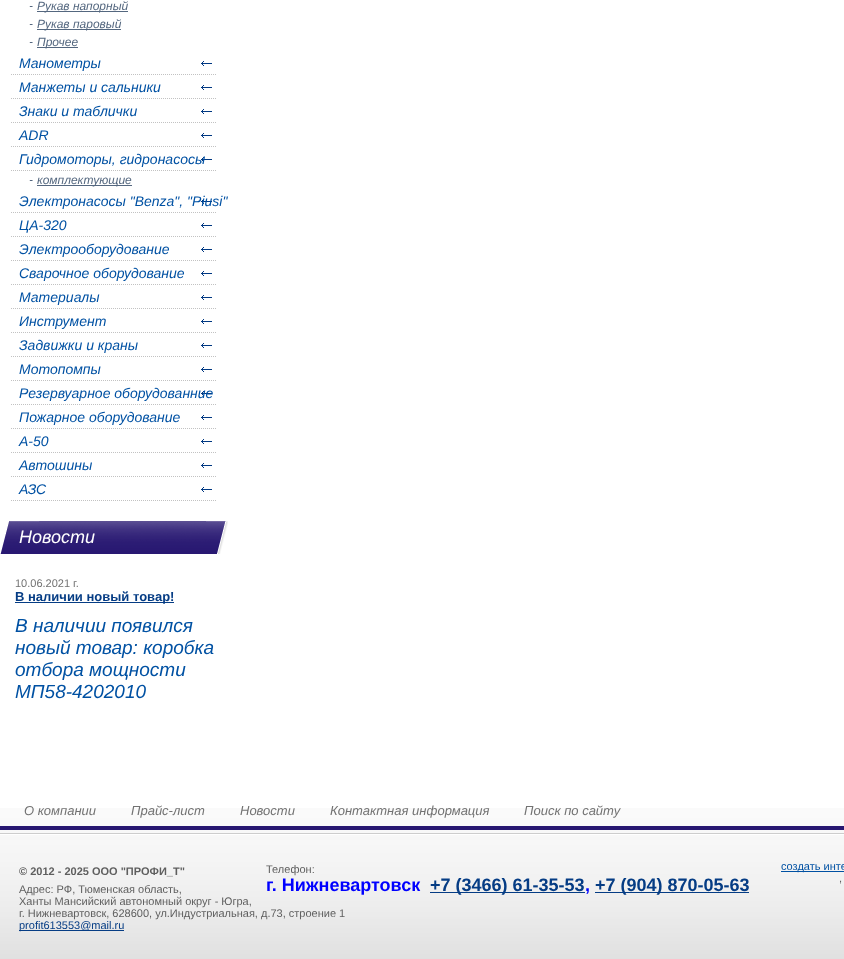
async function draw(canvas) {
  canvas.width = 844
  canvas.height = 959
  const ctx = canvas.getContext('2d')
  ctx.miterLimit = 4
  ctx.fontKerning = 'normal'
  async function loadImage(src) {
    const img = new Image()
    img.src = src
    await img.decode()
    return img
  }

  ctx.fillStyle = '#fff'
  ctx.fillRect(0, 0, 844, 959)
  ctx.drawImage(await loadImage('image0.png'), 0, 835, 844, 124)
  ctx.drawImage(await loadImage('image1.png'), 29, 6, 4, 1)
  ctx.fillStyle = '#54677f'
  ctx.fillRect(37, 11, 91, 1)
  ctx.font = 'italic 12px Liberation Sans'
  ctx.fillText('Рукав напорный', 37, 10)
  ctx.drawImage(await loadImage('image1.png'), 29, 24, 4, 1)
  ctx.fillRect(37, 29, 84, 1)
  ctx.fillText('Рукав паровый', 37, 28)
  ctx.drawImage(await loadImage('image1.png'), 29, 42, 4, 1)
  ctx.fillRect(37, 47, 41, 1)
  ctx.fillText('Прочее', 37, 46)
  ctx.drawImage(await loadImage('image2.png'), 11, 74, 205, 1)
  ctx.drawImage(await loadImage('image3.png'), 201, 61, 11, 5)
  ctx.font = 'italic 14px Liberation Sans'
  ctx.fillStyle = '#0051a3'
  ctx.fillText('Манометры', 19, 68)
  ctx.drawImage(await loadImage('image2.png'), 11, 98, 205, 1)
  ctx.drawImage(await loadImage('image3.png'), 201, 85, 11, 5)
  ctx.fillText('Манжеты и сальники', 19, 92)
  ctx.drawImage(await loadImage('image2.png'), 11, 122, 205, 1)
  ctx.drawImage(await loadImage('image3.png'), 201, 109, 11, 5)
  ctx.fillText('Знаки и таблички', 19, 116)
  ctx.drawImage(await loadImage('image2.png'), 11, 146, 205, 1)
  ctx.drawImage(await loadImage('image3.png'), 201, 133, 11, 5)
  ctx.fillText('ADR', 19, 140)
  ctx.drawImage(await loadImage('image2.png'), 11, 170, 205, 1)
  ctx.drawImage(await loadImage('image3.png'), 201, 157, 11, 5)
  ctx.fillText('Гидромоторы, гидронасосы', 19, 164)
  ctx.drawImage(await loadImage('image1.png'), 29, 180, 4, 1)
  ctx.fillStyle = '#54677f'
  ctx.fillRect(37, 185, 95, 1)
  ctx.font = 'italic 12px Liberation Sans'
  ctx.fillText('комплектующие', 37, 184)
  ctx.drawImage(await loadImage('image2.png'), 11, 212, 205, 1)
  ctx.drawImage(await loadImage('image3.png'), 201, 199, 11, 5)
  ctx.font = 'italic 14px Liberation Sans'
  ctx.fillStyle = '#0051a3'
  ctx.fillText('Электронасосы "Benza", "Piusi"', 19, 206)
  ctx.drawImage(await loadImage('image2.png'), 11, 236, 205, 1)
  ctx.drawImage(await loadImage('image3.png'), 201, 223, 11, 5)
  ctx.fillText('ЦА-320', 19, 230)
  ctx.drawImage(await loadImage('image2.png'), 11, 260, 205, 1)
  ctx.drawImage(await loadImage('image3.png'), 201, 247, 11, 5)
  ctx.fillText('Электрооборудование', 19, 254)
  ctx.drawImage(await loadImage('image2.png'), 11, 284, 205, 1)
  ctx.drawImage(await loadImage('image3.png'), 201, 271, 11, 5)
  ctx.fillText('Сварочное оборудование', 19, 278)
  ctx.drawImage(await loadImage('image2.png'), 11, 308, 205, 1)
  ctx.drawImage(await loadImage('image3.png'), 201, 295, 11, 5)
  ctx.fillText('Материалы', 19, 302)
  ctx.drawImage(await loadImage('image2.png'), 11, 332, 205, 1)
  ctx.drawImage(await loadImage('image3.png'), 201, 319, 11, 5)
  ctx.fillText('Инструмент', 19, 326)
  ctx.drawImage(await loadImage('image2.png'), 11, 356, 205, 1)
  ctx.drawImage(await loadImage('image3.png'), 201, 343, 11, 5)
  ctx.fillText('Задвижки и краны', 19, 350)
  ctx.drawImage(await loadImage('image2.png'), 11, 380, 205, 1)
  ctx.drawImage(await loadImage('image3.png'), 201, 367, 11, 5)
  ctx.fillText('Мотопомпы', 19, 374)
  ctx.drawImage(await loadImage('image2.png'), 11, 404, 205, 1)
  ctx.drawImage(await loadImage('image3.png'), 201, 391, 11, 5)
  ctx.fillText('Резервуарное оборудованние', 19, 398)
  ctx.drawImage(await loadImage('image2.png'), 11, 428, 205, 1)
  ctx.drawImage(await loadImage('image3.png'), 201, 415, 11, 5)
  ctx.fillText('Пожарное оборудование', 19, 422)
  ctx.drawImage(await loadImage('image2.png'), 11, 452, 205, 1)
  ctx.drawImage(await loadImage('image3.png'), 201, 439, 11, 5)
  ctx.fillText('А-50', 19, 446)
  ctx.drawImage(await loadImage('image2.png'), 11, 476, 205, 1)
  ctx.drawImage(await loadImage('image3.png'), 201, 463, 11, 5)
  ctx.fillText('Автошины', 19, 470)
  ctx.drawImage(await loadImage('image2.png'), 11, 500, 205, 1)
  ctx.drawImage(await loadImage('image3.png'), 201, 487, 11, 5)
  ctx.fillText('АЗС', 19, 494)
  ctx.drawImage(await loadImage('image4.png'), 0, 521, 228, 33)
  ctx.font = 'italic 18px Liberation Sans'
  ctx.fillStyle = '#fff'
  ctx.fillText('Новости', 19, 543)
  ctx.font = '11px Liberation Sans'
  ctx.fillStyle = '#727272'
  ctx.fillText('10.06.2021 г.', 15, 587)
  ctx.fillStyle = '#053c84'
  ctx.fillRect(15, 602, 159, 1)
  ctx.font = 'bold 13px Liberation Sans'
  ctx.fillText('В наличии новый товар!', 15, 601)
  ctx.font = 'italic 19px Liberation Sans'
  ctx.fillStyle = '#0051a3'
  ctx.fillText('В наличии появился', 15, 632)
  ctx.fillText('новый товар: коробка', 15, 654)
  ctx.fillText('отбора мощности', 15, 676)
  ctx.fillText('МП58-4202010', 15, 698)
  ctx.drawImage(await loadImage('image5.png'), 0, 808, 844, 27)
  ctx.font = 'italic 13px Liberation Sans'
  ctx.fillStyle = '#727272'
  ctx.fillText('О компании', 24, 815)
  ctx.fillText('Прайс-лист', 131, 815)
  ctx.fillText('Новости', 240, 815)
  ctx.fillText('Контактная информация', 330, 815)
  ctx.fillText('Поиск по сайту', 524, 815)
  ctx.font = 'bold 11px Liberation Sans'
  ctx.fillStyle = '#5f5f5f'
  ctx.fillText('© 2012 - 2025 ООО "ПРОФИ_Т"', 19, 875)
  ctx.font = '11px Liberation Sans'
  ctx.fillText('Телефон:', 266, 873)
  ctx.font = 'bold 18px Liberation Sans'
  ctx.fillStyle = '#00f'
  ctx.fillText('г. Нижневартовск', 266, 891)
  ctx.fillStyle = '#053c84'
  ctx.fillRect(430, 892, 155, 1)
  ctx.fillText('+7 (3466) 61-35-53', 430, 891)
  ctx.fillStyle = '#00f'
  ctx.fillText(',', 585, 891)
  ctx.fillStyle = '#053c84'
  ctx.fillRect(595, 892, 154, 1)
  ctx.fillText('+7 (904) 870-05-63', 595, 891)
  ctx.fillStyle = '#0051a3'
  ctx.fillRect(781, 871, 63, 1)
  ctx.font = '11px Liberation Sans'
  ctx.fillText('создать инте', 781, 870)
  ctx.fillStyle = '#5f5f5f'
  ctx.fillText(',', 839, 882)
  ctx.fillText('Адрес: РФ, Тюменская область,', 19, 893)
  ctx.fillText('Ханты Мансийский автономный округ - Югра,', 19, 905)
  ctx.fillText('г. Нижневартовск, 628600, ул.Индустриальная, д.73, строение 1', 19, 917)
  ctx.fillStyle = '#053c84'
  ctx.fillRect(19, 930, 105, 1)
  ctx.fillText('profit613553@mail.ru', 19, 929)
}

draw(document.querySelector('canvas'))
